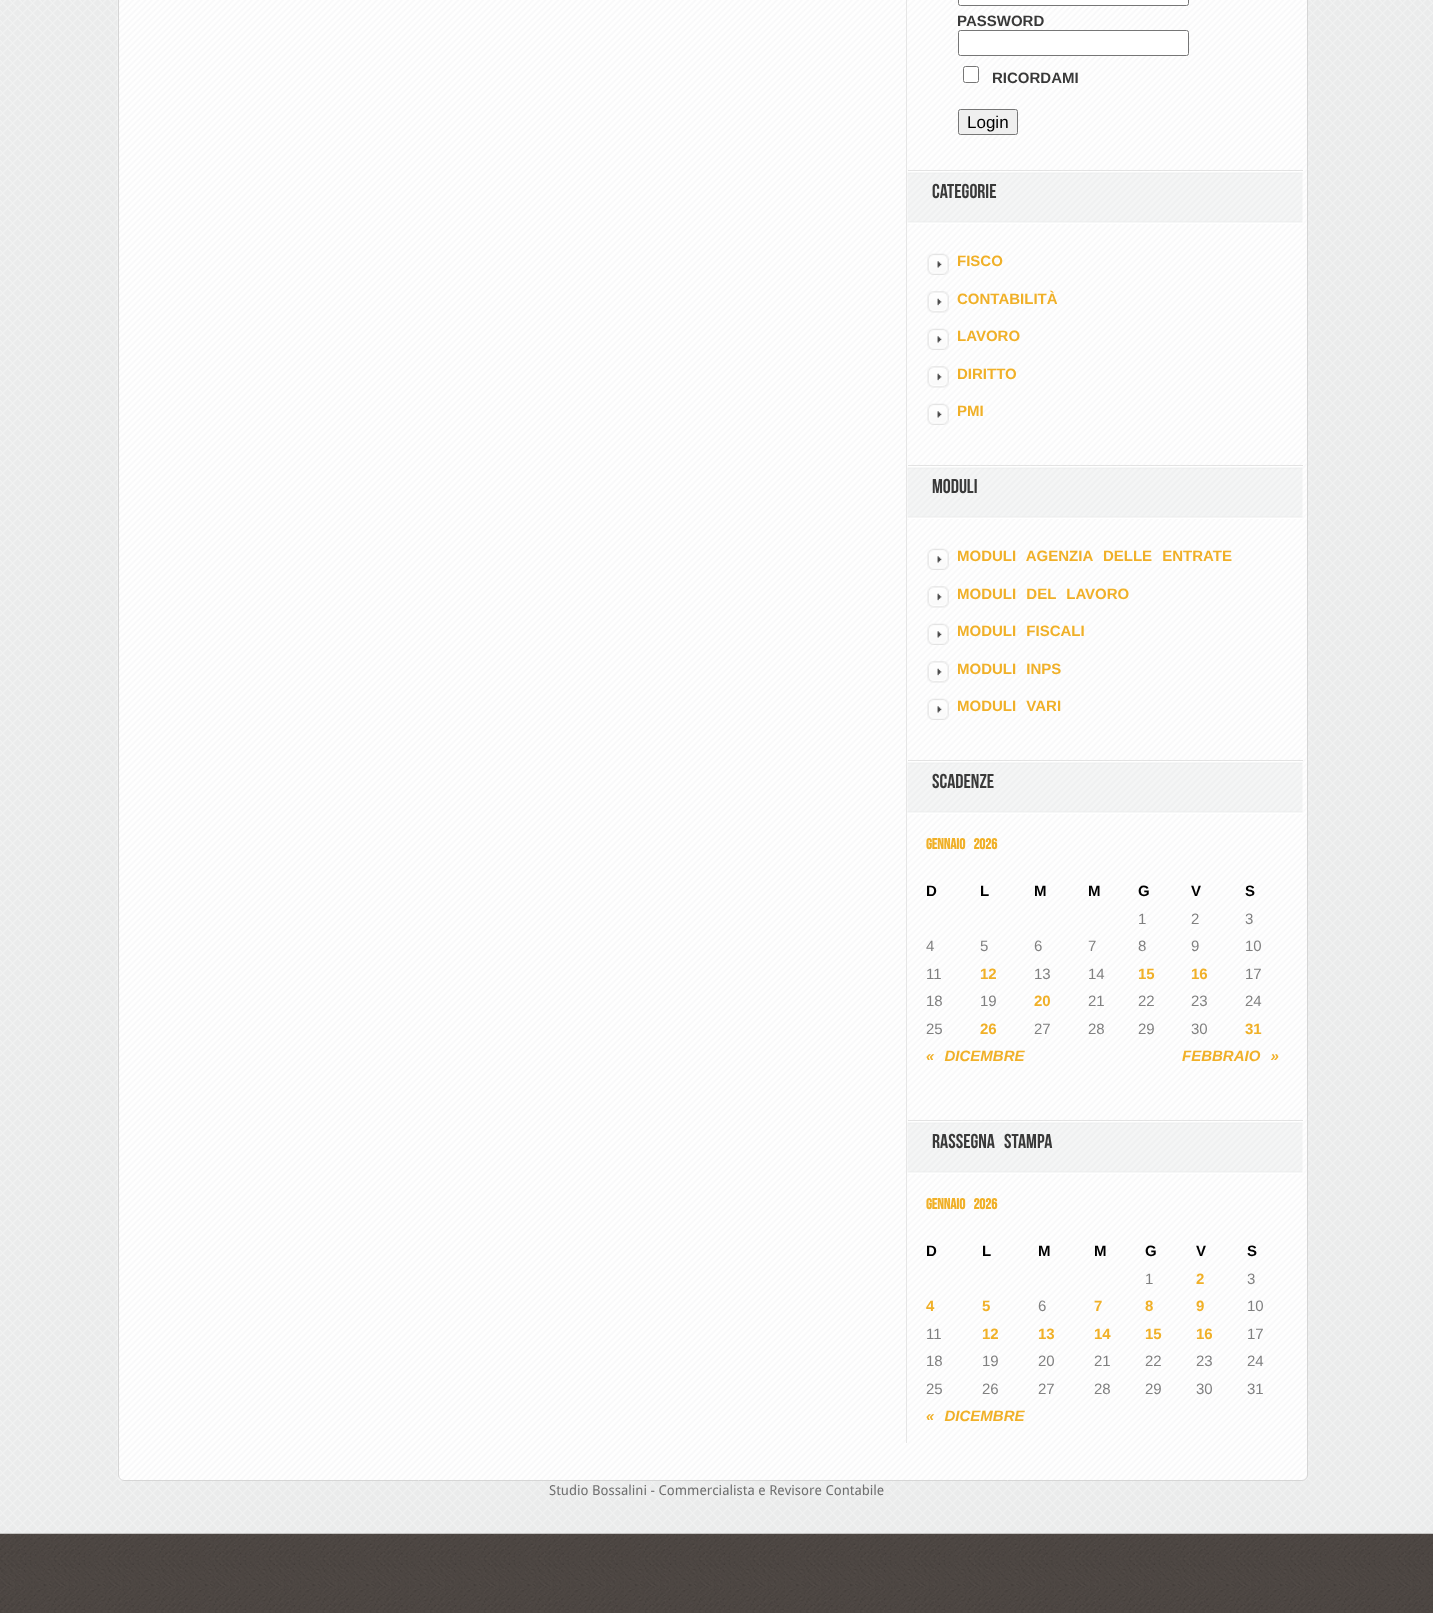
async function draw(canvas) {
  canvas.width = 1433
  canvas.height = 1613
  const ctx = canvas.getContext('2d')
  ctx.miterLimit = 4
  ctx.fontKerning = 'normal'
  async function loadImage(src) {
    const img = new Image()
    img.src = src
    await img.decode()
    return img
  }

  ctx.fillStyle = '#fff'
  ctx.fillRect(0, 0, 1433, 1613)
  ctx.drawImage(await loadImage('image0.png'), 0, 0, 1433, 1534)
  ctx.drawImage(await loadImage('image1.png'), 117, 0, 1190, 1481)
  ctx.beginPath()
  ctx.roundRect(118.5, -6.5, 1189, 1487, 5.5)
  ctx.strokeStyle = '#d6d6d6'
  ctx.stroke()
  ctx.fillStyle = '#e6e6e6'
  ctx.fillRect(906, 0, 1, 1443)
  ctx.fillStyle = '#fff'
  ctx.beginPath()
  ctx.roundRect(958.5, -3.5, 230, 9, 2)
  ctx.fill()
  ctx.strokeStyle = '#767676'
  ctx.stroke()
  ctx.font = 'bold 15px Liberation Sans'
  ctx.fillStyle = '#393939'
  ctx.fillText('PASSWORD', 957, 26)
  ctx.fillStyle = '#fff'
  ctx.beginPath()
  ctx.roundRect(958.5, 30.5, 230, 25, 2)
  ctx.fill()
  ctx.stroke()
  ctx.beginPath()
  ctx.roundRect(963.5, 66.5, 15, 16, 2)
  ctx.fill()
  ctx.stroke()
  ctx.fillStyle = '#393939'
  ctx.fillText('RICORDAMI', 992, 83)
  ctx.fillStyle = '#efefef'
  ctx.beginPath()
  ctx.roundRect(958.5, 109.5, 59, 25, 2)
  ctx.fill()
  ctx.stroke()
  ctx.font = '17px Liberation Sans'
  ctx.fillStyle = '#000'
  ctx.fillText('Login', 967, 128)
  ctx.drawImage(await loadImage('image2.png'), 907, 171, 396, 53)
  ctx.fillStyle = '#e3e3e3'
  ctx.fillRect(908, 170, 395, 1)
  ctx.font = '20px Bebas Neue'
  ctx.fillStyle = '#393939'
  ctx.fillText('CATEGORIE', 932, 198)
  ctx.drawImage(await loadImage('image3.png'), 927, 253, 22, 22)
  ctx.font = 'bold 15px Liberation Sans'
  ctx.fillStyle = '#f0b028'
  ctx.fillText('FISCO', 957, 266)
  ctx.drawImage(await loadImage('image4.png'), 927, 291, 22, 22)
  ctx.fillText('CONTABILITÀ', 957, 304)
  ctx.drawImage(await loadImage('image3.png'), 927, 328, 22, 22)
  ctx.fillText('LAVORO', 957, 341)
  ctx.drawImage(await loadImage('image4.png'), 927, 366, 22, 22)
  ctx.fillText('DIRITTO', 957, 379)
  ctx.drawImage(await loadImage('image3.png'), 927, 403, 22, 22)
  ctx.fillText('PMI', 957, 416)
  ctx.drawImage(await loadImage('image5.png'), 907, 466, 396, 53)
  ctx.fillStyle = '#e3e3e3'
  ctx.fillRect(908, 465, 395, 1)
  ctx.font = '20px Bebas Neue'
  ctx.fillStyle = '#393939'
  ctx.fillText('MODULI', 932, 493)
  ctx.drawImage(await loadImage('image6.png'), 927, 548, 22, 22)
  ctx.wordSpacing = '6px'
  ctx.font = 'bold 15px Liberation Sans'
  ctx.fillStyle = '#f0b028'
  ctx.fillText('MODULI AGENZIA DELLE ENTRATE', 957, 561)
  ctx.drawImage(await loadImage('image7.png'), 927, 586, 22, 22)
  ctx.fillText('MODULI DEL LAVORO', 957, 599)
  ctx.drawImage(await loadImage('image6.png'), 927, 623, 22, 22)
  ctx.fillText('MODULI FISCALI', 957, 636)
  ctx.drawImage(await loadImage('image7.png'), 927, 661, 22, 22)
  ctx.fillText('MODULI INPS', 957, 674)
  ctx.drawImage(await loadImage('image6.png'), 927, 698, 22, 22)
  ctx.fillText('MODULI VARI', 957, 711)
  ctx.drawImage(await loadImage('image8.png'), 907, 761, 396, 53)
  ctx.fillStyle = '#e3e3e3'
  ctx.fillRect(908, 760, 395, 1)
  ctx.wordSpacing = '0px'
  ctx.font = '20px Bebas Neue'
  ctx.fillStyle = '#393939'
  ctx.fillText('SCADENZE', 932, 788)
  ctx.wordSpacing = '6px'
  ctx.font = 'bold 15px Bebas Neue'
  ctx.fillStyle = '#f0b028'
  ctx.fillText('GENNAIO 2026', 926, 849)
  ctx.wordSpacing = '0px'
  ctx.font = 'bold 15px Liberation Sans'
  ctx.fillStyle = '#000'
  ctx.fillText('D', 926, 896)
  ctx.fillText('L', 980, 896)
  ctx.fillText('M', 1034, 896)
  ctx.fillText('M', 1088, 896)
  ctx.fillText('G', 1138, 896)
  ctx.fillText('V', 1191, 896)
  ctx.fillText('S', 1245, 896)
  ctx.font = '15px Liberation Sans'
  ctx.fillStyle = '#808080'
  ctx.fillText('1', 1138, 924)
  ctx.fillText('2', 1191, 924)
  ctx.fillText('3', 1245, 924)
  ctx.fillText('4', 926, 951)
  ctx.fillText('5', 980, 951)
  ctx.fillText('6', 1034, 951)
  ctx.fillText('7', 1088, 951)
  ctx.fillText('8', 1138, 951)
  ctx.fillText('9', 1191, 951)
  ctx.fillText('10', 1245, 951)
  ctx.fillText('11', 926, 979)
  ctx.font = 'bold 15px Liberation Sans'
  ctx.fillStyle = '#f0b028'
  ctx.fillText('12', 980, 979)
  ctx.font = '15px Liberation Sans'
  ctx.fillStyle = '#808080'
  ctx.fillText('13', 1034, 979)
  ctx.fillText('14', 1088, 979)
  ctx.font = 'bold 15px Liberation Sans'
  ctx.fillStyle = '#f0b028'
  ctx.fillText('15', 1138, 979)
  ctx.fillText('16', 1191, 979)
  ctx.font = '15px Liberation Sans'
  ctx.fillStyle = '#808080'
  ctx.fillText('17', 1245, 979)
  ctx.fillText('18', 926, 1006)
  ctx.fillText('19', 980, 1006)
  ctx.font = 'bold 15px Liberation Sans'
  ctx.fillStyle = '#f0b028'
  ctx.fillText('20', 1034, 1006)
  ctx.font = '15px Liberation Sans'
  ctx.fillStyle = '#808080'
  ctx.fillText('21', 1088, 1006)
  ctx.fillText('22', 1138, 1006)
  ctx.fillText('23', 1191, 1006)
  ctx.fillText('24', 1245, 1006)
  ctx.fillText('25', 926, 1034)
  ctx.font = 'bold 15px Liberation Sans'
  ctx.fillStyle = '#f0b028'
  ctx.fillText('26', 980, 1034)
  ctx.font = '15px Liberation Sans'
  ctx.fillStyle = '#808080'
  ctx.fillText('27', 1034, 1034)
  ctx.fillText('28', 1088, 1034)
  ctx.fillText('29', 1138, 1034)
  ctx.fillText('30', 1191, 1034)
  ctx.font = 'bold 15px Liberation Sans'
  ctx.fillStyle = '#f0b028'
  ctx.fillText('31', 1245, 1034)
  ctx.wordSpacing = '6px'
  ctx.font = 'italic bold 15px Liberation Sans'
  ctx.fillText('« DICEMBRE', 926, 1061)
  ctx.fillText('FEBBRAIO »', 1182, 1061)
  ctx.drawImage(await loadImage('image2.png'), 907, 1121, 396, 53)
  ctx.fillStyle = '#e3e3e3'
  ctx.fillRect(908, 1120, 395, 1)
  ctx.font = '20px Bebas Neue'
  ctx.fillStyle = '#393939'
  ctx.fillText('RASSEGNA STAMPA', 932, 1148)
  ctx.font = 'bold 15px Bebas Neue'
  ctx.fillStyle = '#f0b028'
  ctx.fillText('GENNAIO 2026', 926, 1209)
  ctx.wordSpacing = '0px'
  ctx.font = 'bold 15px Liberation Sans'
  ctx.fillStyle = '#000'
  ctx.fillText('D', 926, 1256)
  ctx.fillText('L', 982, 1256)
  ctx.fillText('M', 1038, 1256)
  ctx.fillText('M', 1094, 1256)
  ctx.fillText('G', 1145, 1256)
  ctx.fillText('V', 1196, 1256)
  ctx.fillText('S', 1247, 1256)
  ctx.font = '15px Liberation Sans'
  ctx.fillStyle = '#808080'
  ctx.fillText('1', 1145, 1284)
  ctx.font = 'bold 15px Liberation Sans'
  ctx.fillStyle = '#f0b028'
  ctx.fillText('2', 1196, 1284)
  ctx.font = '15px Liberation Sans'
  ctx.fillStyle = '#808080'
  ctx.fillText('3', 1247, 1284)
  ctx.font = 'bold 15px Liberation Sans'
  ctx.fillStyle = '#f0b028'
  ctx.fillText('4', 926, 1311)
  ctx.fillText('5', 982, 1311)
  ctx.font = '15px Liberation Sans'
  ctx.fillStyle = '#808080'
  ctx.fillText('6', 1038, 1311)
  ctx.font = 'bold 15px Liberation Sans'
  ctx.fillStyle = '#f0b028'
  ctx.fillText('7', 1094, 1311)
  ctx.fillText('8', 1145, 1311)
  ctx.fillText('9', 1196, 1311)
  ctx.font = '15px Liberation Sans'
  ctx.fillStyle = '#808080'
  ctx.fillText('10', 1247, 1311)
  ctx.fillText('11', 926, 1339)
  ctx.font = 'bold 15px Liberation Sans'
  ctx.fillStyle = '#f0b028'
  ctx.fillText('12', 982, 1339)
  ctx.fillText('13', 1038, 1339)
  ctx.fillText('14', 1094, 1339)
  ctx.fillText('15', 1145, 1339)
  ctx.fillText('16', 1196, 1339)
  ctx.font = '15px Liberation Sans'
  ctx.fillStyle = '#808080'
  ctx.fillText('17', 1247, 1339)
  ctx.fillText('18', 926, 1366)
  ctx.fillText('19', 982, 1366)
  ctx.fillText('20', 1038, 1366)
  ctx.fillText('21', 1094, 1366)
  ctx.fillText('22', 1145, 1366)
  ctx.fillText('23', 1196, 1366)
  ctx.fillText('24', 1247, 1366)
  ctx.fillText('25', 926, 1394)
  ctx.fillText('26', 982, 1394)
  ctx.fillText('27', 1038, 1394)
  ctx.fillText('28', 1094, 1394)
  ctx.fillText('29', 1145, 1394)
  ctx.fillText('30', 1196, 1394)
  ctx.fillText('31', 1247, 1394)
  ctx.wordSpacing = '6px'
  ctx.font = 'italic bold 15px Liberation Sans'
  ctx.fillStyle = '#f0b028'
  ctx.fillText('« DICEMBRE', 926, 1421)
  ctx.wordSpacing = '0px'
  ctx.font = '13.75px Droid Sans'
  ctx.fillStyle = '#707070'
  ctx.fillText('Studio Bossalini - Commercialista e Revisore Contabile', 549, 1495)
  ctx.drawImage(await loadImage('image9.png'), 0, 1533, 1433, 80)
}

draw(document.querySelector('canvas'))
